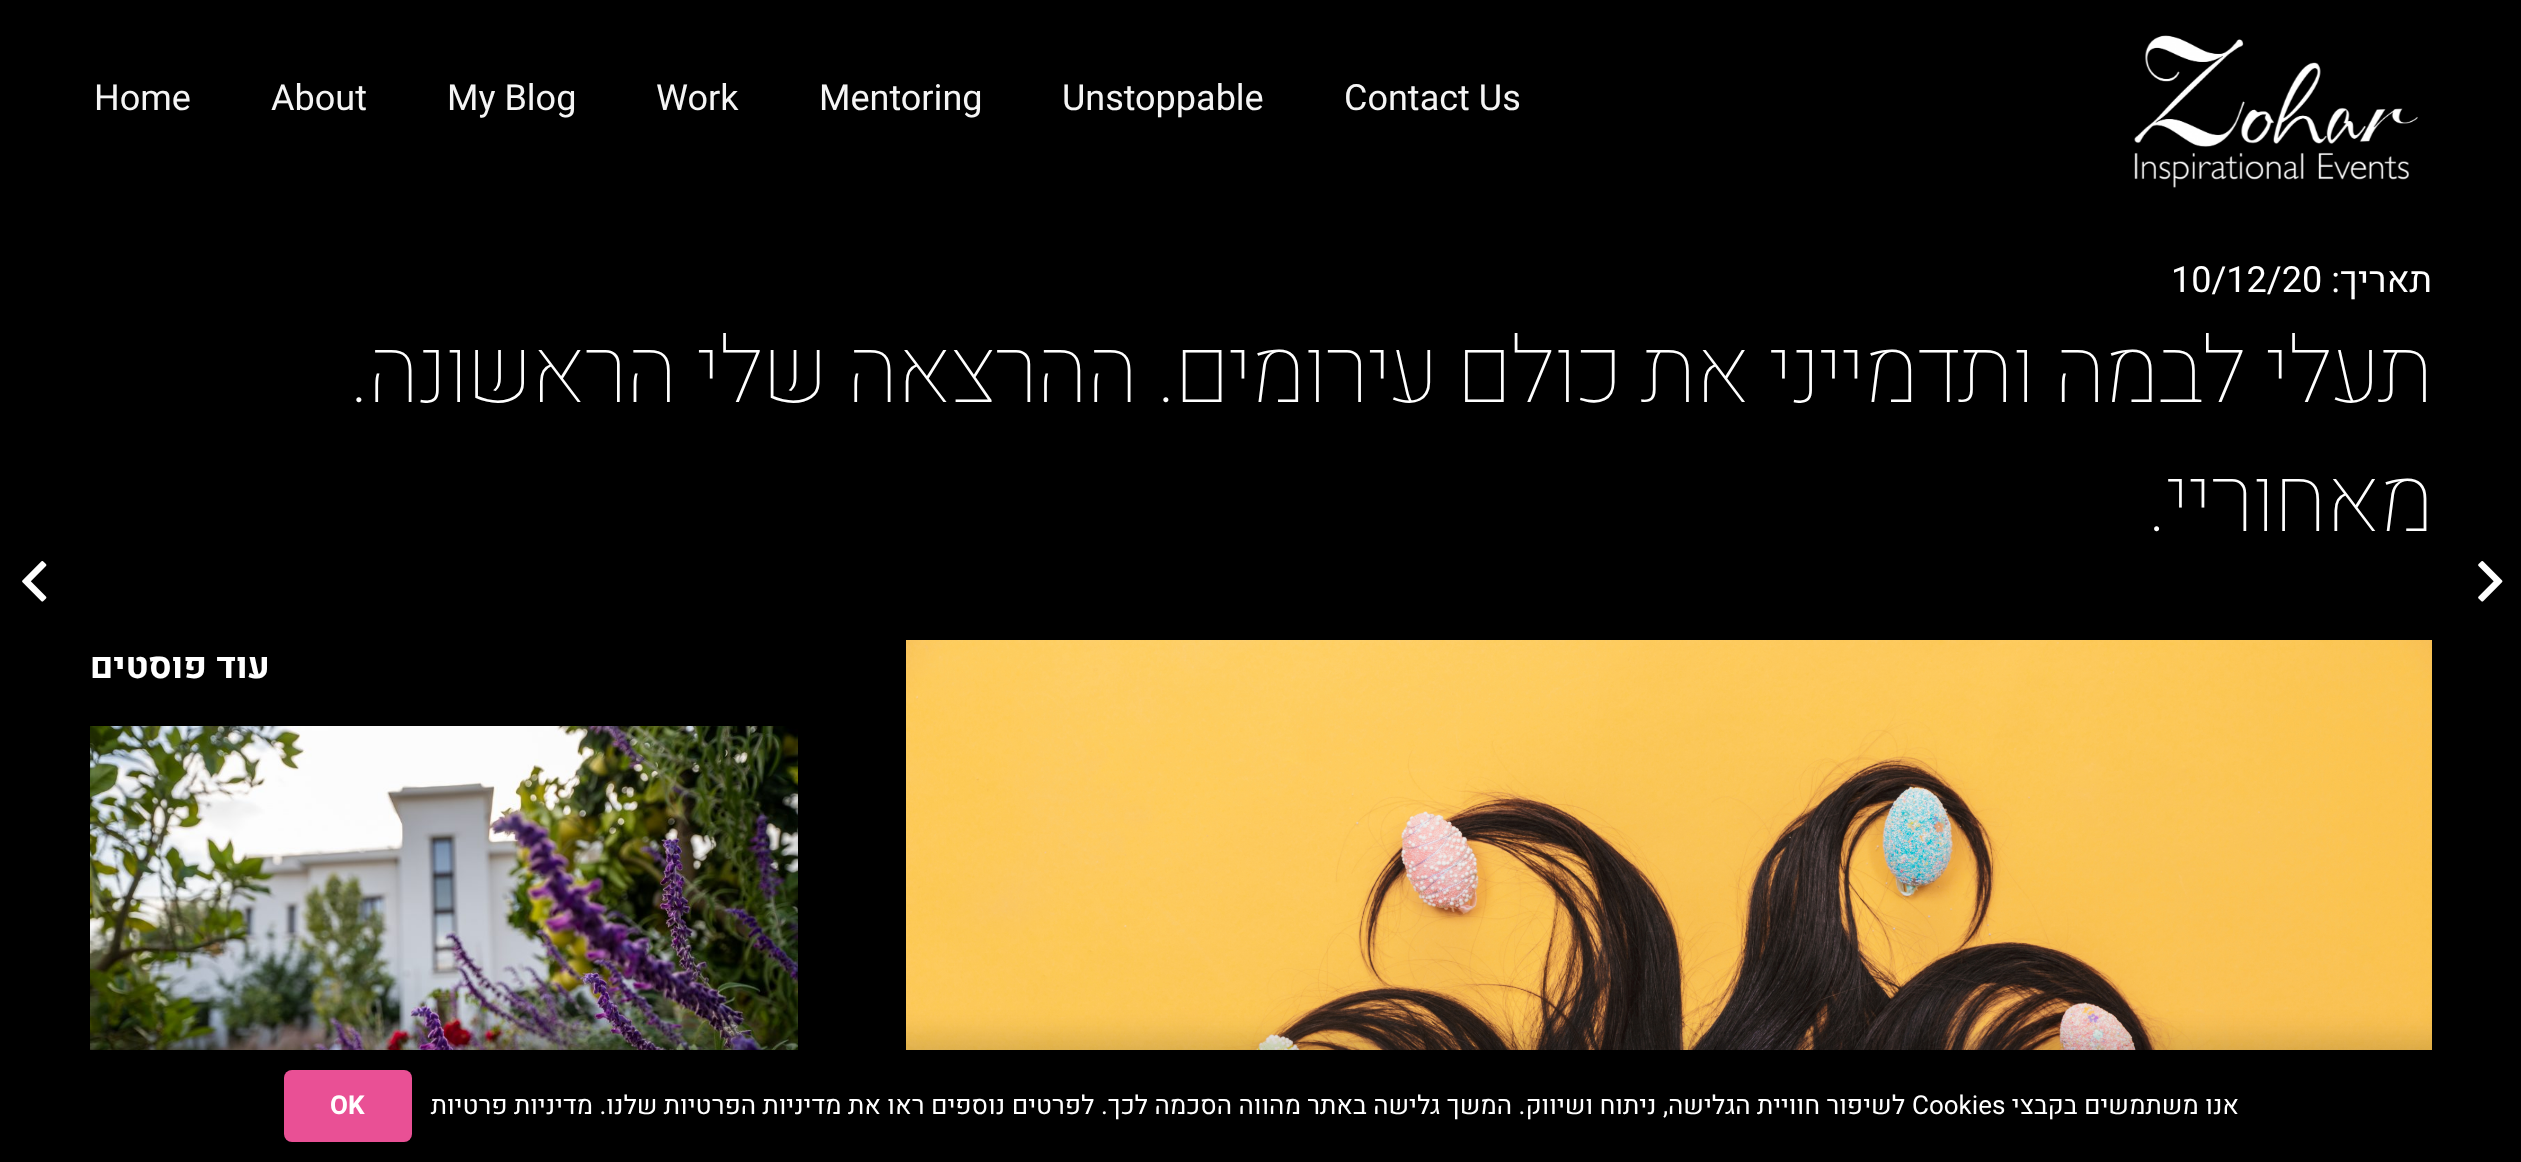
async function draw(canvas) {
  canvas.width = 2521
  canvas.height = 1162
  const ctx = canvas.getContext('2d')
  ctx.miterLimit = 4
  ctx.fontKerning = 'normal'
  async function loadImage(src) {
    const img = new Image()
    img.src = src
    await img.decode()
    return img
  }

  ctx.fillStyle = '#000'
  ctx.fillRect(0, 0, 2521, 1162)
  ctx.drawImage(await loadImage('image0.png'), 2134, 35, 284, 153)
  ctx.font = '36px Heebo'
  ctx.fillStyle = '#f5f5f5'
  ctx.fillText('Contact Us', 1344, 110)
  ctx.fillText('Unstoppable', 1062, 110)
  ctx.fillText('Mentoring', 819, 110)
  ctx.fillText('Work', 656, 110)
  ctx.fillText('My Blog', 447, 110)
  ctx.fillText('About', 271, 110)
  ctx.fillText('Home', 94, 110)
  ctx.direction = 'rtl'
  ctx.fillStyle = '#fff'
  ctx.fillText('תאריך:', 2432, 292)
  ctx.direction = 'ltr'
  ctx.fillText('10/12/20', 2171, 292)
  ctx.letterSpacing = '-1.85px'
  ctx.direction = 'rtl'
  ctx.font = '100 92px Heebo'
  ctx.fillText('תעלי לבמה ותדמייני את כולם עירומים. ההרצאה שלי הראשונה.', 2432, 402)
  ctx.fillText('מאחוריי.', 2432, 531)
  ctx.drawImage(await loadImage('image1.png'), 2478, 561, 25, 41)
  ctx.drawImage(await loadImage('image2.png'), 22, 561, 25, 41)
  ctx.drawImage(await loadImage('image3.png'), 906, 640, 1526, 410)
  ctx.letterSpacing = '0px'
  ctx.font = 'bold 36px Heebo'
  ctx.fillText('עוד פוסטים', 270, 678)
  ctx.drawImage(await loadImage('image4.png'), 90, 726, 708, 324)
  ctx.fillStyle = '#00000026'
  ctx.filter = 'blur(15px)'
  ctx.beginPath()
  ctx.rect(0, 1040, 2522, 112)
  ctx.fill()
  ctx.filter = 'none'
  ctx.font = '26px Heebo'
  ctx.fillStyle = '#fff'
  ctx.fillText('אנו משתמשים בקבצי', 2239, 1114)
  ctx.direction = 'ltr'
  ctx.fillText('Cookies', 1912, 1114)
  ctx.direction = 'rtl'
  ctx.fillText('לשיפור חוויית הגלישה, ניתוח ושיווק. המשך גלישה באתר מהווה הסכמה לכך. לפרטים נוספים ראו את מדיניות הפרטיות שלנו.', 1905, 1114)
  ctx.fillText('מדיניות פרטיות', 593, 1114)
  ctx.fillStyle = '#e95095'
  ctx.beginPath()
  ctx.roundRect(284, 1070, 128, 72, 8)
  ctx.fill()
  ctx.direction = 'ltr'
  ctx.font = 'bold 26px Heebo'
  ctx.fillStyle = '#fff'
  ctx.fillText('OK', 330, 1114)
}

draw(document.querySelector('canvas'))
